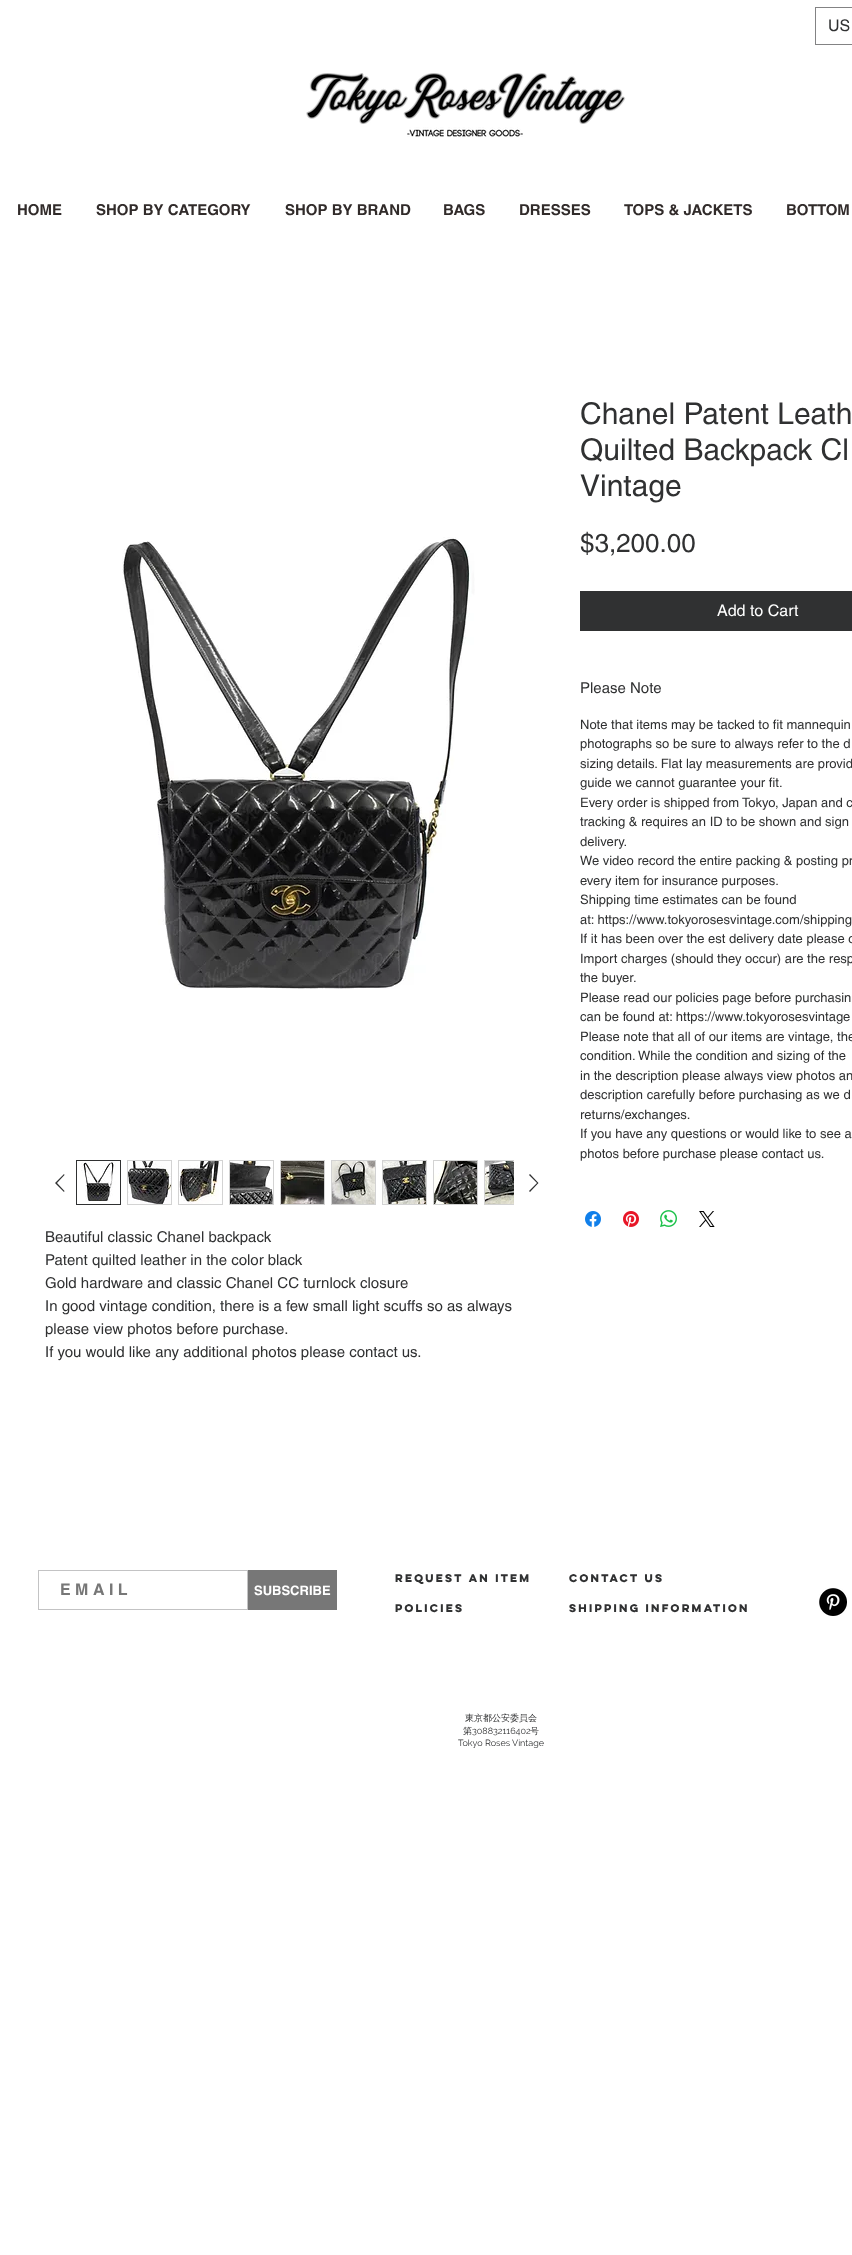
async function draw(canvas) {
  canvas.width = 852
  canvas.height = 2255
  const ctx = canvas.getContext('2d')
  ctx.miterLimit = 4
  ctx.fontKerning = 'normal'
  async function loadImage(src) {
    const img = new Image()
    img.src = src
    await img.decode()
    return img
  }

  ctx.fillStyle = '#fff'
  ctx.fillRect(0, 0, 852, 2255)
  ctx.strokeStyle = '#838384'
  ctx.strokeRect(815.5, 7.5, 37, 37)
  ctx.font = '16px helvetica'
  ctx.fillStyle = '#303132'
  ctx.fillText('US', 828, 31)
  ctx.drawImage(await loadImage('image0.png'), 306, 73, 320, 64)
  ctx.font = 'bold 15px helvetica'
  ctx.fillStyle = '#312b2a'
  ctx.fillText('HOME', 17, 215)
  ctx.fillText('SHOP BY CATEGORY', 96, 215)
  ctx.fillText('SHOP BY BRAND', 285, 215)
  ctx.fillText('BAGS', 443, 215)
  ctx.fillText('DRESSES', 519, 215)
  ctx.fillText('TOPS & JACKETS', 624, 215)
  ctx.fillText('BOTTOM', 786, 215)
  ctx.font = '30px helvetica'
  ctx.fillStyle = '#303132'
  ctx.fillText('Chanel Patent Leath', 580, 424)
  ctx.fillText('Quilted Backpack Cl', 580, 460)
  ctx.fillText('Vintage', 580, 496)
  ctx.font = '26px helvetica'
  ctx.fillText('$3,200.00', 580, 552)
  ctx.fillRect(580, 591, 272, 40)
  ctx.font = '16px helvetica'
  ctx.fillStyle = '#fff'
  ctx.fillText('Add to Cart', 717, 616)
  ctx.font = '15px helvetica'
  ctx.fillStyle = '#303132'
  ctx.fillText('Please Note', 580, 693)
  ctx.font = '13px helvetica'
  ctx.fillText('Note that items may be tacked to fit mannequin', 580, 729)
  ctx.fillText('photographs so be sure to always refer to the d', 580, 748)
  ctx.fillText('sizing details. Flat lay measurements are provid', 580, 768)
  ctx.fillText('guide we cannot guarantee your fit.', 580, 787)
  ctx.fillText('Every order is shipped from Tokyo, Japan and c', 580, 807)
  ctx.fillText('tracking & requires an ID to be shown and sign', 580, 826)
  ctx.fillText('delivery.', 580, 846)
  ctx.fillText('We video record the entire packing & posting pr', 580, 865)
  ctx.fillText('every item for insurance purposes.', 580, 885)
  ctx.fillText('Shipping time estimates can be found', 580, 904)
  ctx.fillText('at: https://www.tokyorosesvintage.com/shipping', 580, 924)
  ctx.fillText('If it has been over the est delivery date please c', 580, 943)
  ctx.fillText('Import charges (should they occur) are the resp', 580, 963)
  ctx.fillText('the buyer.', 580, 982)
  ctx.fillText('Please read our policies page before purchasin', 580, 1002)
  ctx.fillText('can be found at: https://www.tokyorosesvintage', 580, 1021)
  ctx.fillText('Please note that all of our items are vintage, the', 580, 1041)
  ctx.fillText('condition. While the condition and sizing of the', 580, 1060)
  ctx.fillText('in the description please always view photos an', 580, 1080)
  ctx.fillText('description carefully before purchasing as we d', 580, 1099)
  ctx.fillText('returns/exchanges.', 580, 1119)
  ctx.fillText('If you have any questions or would like to see a', 580, 1138)
  ctx.fillText('photos before purchase please contact us.', 580, 1158)
  ctx.drawImage(await loadImage('image1.png'), 585, 1211, 16, 16)
  ctx.drawImage(await loadImage('image2.png'), 623, 1211, 16, 16)
  ctx.drawImage(await loadImage('image3.png'), 660, 1210, 17, 17)
  ctx.drawImage(await loadImage('image4.png'), 699, 1211, 16, 16)
  ctx.drawImage(await loadImage('image5.png'), 122, 537, 353, 452)
  ctx.beginPath()
  ctx.moveTo(64, 1174)
  ctx.lineTo(64.5, 1175)
  ctx.lineTo(57, 1183)
  ctx.lineTo(64.5, 1191)
  ctx.lineTo(64, 1192)
  ctx.lineTo(55, 1183)
  ctx.closePath()
  ctx.fill('evenodd')
  ctx.strokeStyle = '#303132'
  ctx.strokeRect(76.5, 1160.5, 44, 44)
  ctx.drawImage(await loadImage('image6.png'), 81, 1162, 35, 39)
  ctx.strokeStyle = '#d3d3d3'
  ctx.strokeRect(127.5, 1160.5, 44, 44)
  ctx.drawImage(await loadImage('image7.png'), 128, 1161, 43, 43)
  ctx.strokeRect(178.5, 1160.5, 44, 44)
  ctx.drawImage(await loadImage('image8.png'), 179, 1161, 40, 43)
  ctx.strokeRect(229.5, 1160.5, 44, 44)
  ctx.drawImage(await loadImage('image9.png'), 230, 1161, 43, 43)
  ctx.strokeRect(280.5, 1160.5, 44, 44)
  ctx.drawImage(await loadImage('image10.png'), 281, 1161, 43, 43)
  ctx.strokeRect(331.5, 1160.5, 44, 44)
  ctx.drawImage(await loadImage('image11.png'), 332, 1161, 43, 43)
  ctx.strokeRect(382.5, 1160.5, 44, 44)
  ctx.drawImage(await loadImage('image12.png'), 383, 1161, 43, 43)
  ctx.strokeRect(433.5, 1160.5, 44, 44)
  ctx.drawImage(await loadImage('image13.png'), 434, 1161, 43, 43)
  ctx.save()
  ctx.beginPath()
  ctx.rect(72, 1156, 442, 53)
  ctx.clip()
  ctx.strokeRect(484.5, 1160.5, 44, 44)
  ctx.restore()
  ctx.drawImage(await loadImage('image14.png'), 485, 1161, 29, 43)
  ctx.beginPath()
  ctx.moveTo(530, 1174)
  ctx.lineTo(538.5, 1183)
  ctx.lineTo(530, 1192)
  ctx.lineTo(529, 1191)
  ctx.lineTo(537, 1183)
  ctx.lineTo(529, 1175)
  ctx.closePath()
  ctx.fill('evenodd')
  ctx.font = '15px helvetica'
  ctx.fillText('Beautiful classic Chanel backpack', 45, 1242)
  ctx.fillText('Patent quilted leather in the color black', 45, 1265)
  ctx.fillText('Gold hardware and classic Chanel CC turnlock closure', 45, 1288)
  ctx.fillText('In good vintage condition, there is a few small light scuffs so as always', 45, 1311)
  ctx.fillText('please view photos before purchase.', 45, 1334)
  ctx.fillText('If you would like any additional photos please contact us.', 45, 1357)
  ctx.strokeStyle = '#c3c3c4'
  ctx.strokeRect(38.5, 1570.5, 209, 39)
  ctx.font = 'bold 16px helvetica'
  ctx.fillStyle = '#777'
  ctx.fillText('E M A I L', 60, 1595)
  ctx.fillRect(248, 1570, 89, 40)
  ctx.font = 'bold 13px helvetica'
  ctx.fillStyle = '#fff'
  ctx.fillText('SUBSCRIBE', 254, 1595)
  ctx.font = 'bold 10px "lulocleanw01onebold"'
  ctx.fillStyle = '#303132'
  ctx.fillText('REQUEST AN ITEM', 395, 1582)
  ctx.fillText('policies', 395, 1612)
  ctx.fillText('Contact us', 569, 1582)
  ctx.fillText('Shipping Information', 569, 1612)
  ctx.drawImage(await loadImage('image15.png'), 819, 1588, 28, 28)
  ctx.font = '500 9px WenQuanYi Zen Hei'
  ctx.fillText('東京都公安委員会', 465, 1721)
  ctx.fillText('第', 463, 1734)
  ctx.font = '9px Raleway'
  ctx.fillText('308832116402', 472, 1734)
  ctx.font = '500 9px WenQuanYi Zen Hei'
  ctx.fillText('号', 530, 1734)
  ctx.font = '9px Raleway'
  ctx.fillText('Tokyo Roses Vintage', 458, 1746)
}

draw(document.querySelector('canvas'))
